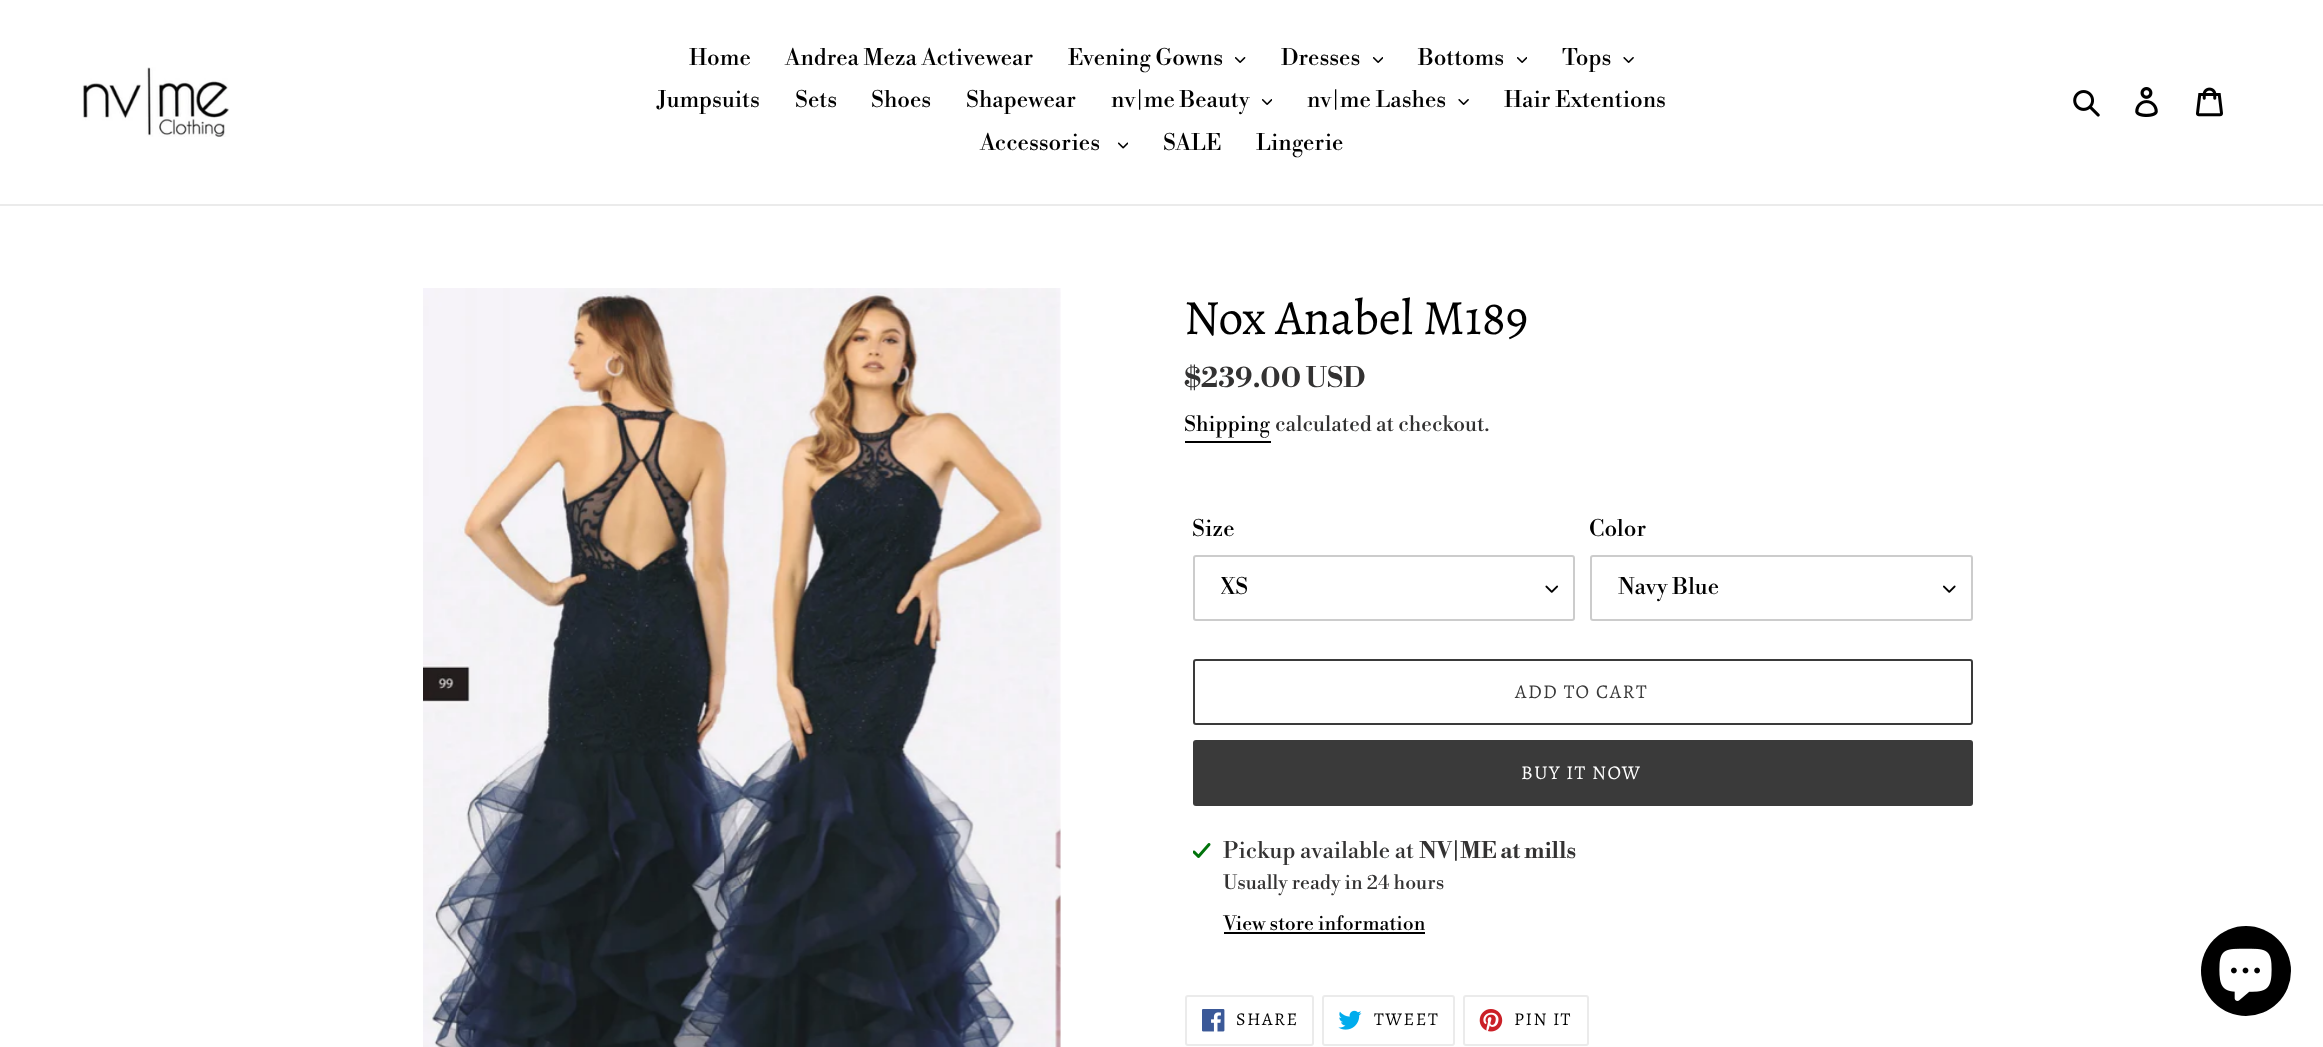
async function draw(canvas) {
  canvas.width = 2323
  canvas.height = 1047
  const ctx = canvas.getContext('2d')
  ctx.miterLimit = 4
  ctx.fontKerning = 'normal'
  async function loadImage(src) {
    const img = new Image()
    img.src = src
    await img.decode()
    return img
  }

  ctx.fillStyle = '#fff'
  ctx.fillRect(0, 0, 2323, 1047)
  ctx.fillStyle = '#ebebeb'
  ctx.fillRect(0, 204, 2323, 2)
  ctx.drawImage(await loadImage('image0.png'), 82, 67, 148, 70)
  ctx.font = '22.5px Libre Bodoni'
  ctx.fillStyle = '#000'
  ctx.fillText('Home', 689, 65)
  ctx.fillText('Andrea Meza Activewear', 785, 65)
  ctx.fillText('Evening Gowns', 1068, 65)
  ctx.drawImage(await loadImage('image1.png'), 1235, 57, 11, 6)
  ctx.fillText('Dresses', 1281, 65)
  ctx.drawImage(await loadImage('image2.png'), 1373, 57, 10, 6)
  ctx.fillText('Bottoms', 1418, 65)
  ctx.drawImage(await loadImage('image2.png'), 1517, 57, 10, 6)
  ctx.fillText('Tops', 1562, 65)
  ctx.drawImage(await loadImage('image3.png'), 1623, 57, 11, 6)
  ctx.fillText('Jumpsuits', 657, 107)
  ctx.fillText('Sets', 795, 107)
  ctx.fillText('Shoes', 871, 107)
  ctx.fillText('Shapewear', 966, 107)
  ctx.fillText('nv|me Beauty', 1111, 107)
  ctx.drawImage(await loadImage('image2.png'), 1262, 99, 10, 6)
  ctx.fillText('nv|me Lashes', 1307, 107)
  ctx.drawImage(await loadImage('image3.png'), 1458, 99, 11, 6)
  ctx.fillText('Hair Extentions', 1504, 107)
  ctx.fillText('Accessories', 980, 150)
  ctx.drawImage(await loadImage('image4.png'), 1118, 142, 10, 7)
  ctx.fillText('SALE', 1163, 150)
  ctx.fillText('Lingerie', 1256, 150)
  ctx.drawImage(await loadImage('image5.png'), 2073, 90, 27, 27)
  ctx.drawImage(await loadImage('image6.png'), 2135, 87, 23, 30)
  ctx.drawImage(await loadImage('image7.png'), 2196, 87, 27, 30)
  ctx.drawImage(await loadImage('image8.png'), 423, 288, 638, 759)
  ctx.font = '49.5px Alegreya'
  ctx.fillText('Nox Anabel M189', 1184, 334)
  ctx.font = 'bold 28px Libre Bodoni'
  ctx.fillStyle = '#333232'
  ctx.fillText('$239.00 USD', 1184, 387)
  ctx.font = '21px Libre Bodoni'
  ctx.fillStyle = '#000'
  ctx.fillText('Shipping', 1184, 431)
  ctx.fillRect(1185, 441, 86, 2)
  ctx.fillStyle = '#333232'
  ctx.fillText('calculated at checkout.', 1275, 431)
  ctx.font = '22.5px Libre Bodoni'
  ctx.fillStyle = '#000'
  ctx.fillText('Size', 1192, 536)
  ctx.drawImage(await loadImage('image9.png'), 1545, 585, 14, 8)
  ctx.beginPath()
  ctx.roundRect(1194, 556, 380, 64, 2)
  ctx.strokeStyle = '#ccc'
  ctx.lineWidth = 2
  ctx.stroke()
  ctx.save()
  ctx.beginPath()
  ctx.rect(1221, 575, 311, 27)
  ctx.clip()
  ctx.fillText('XS', 1220, 594)
  ctx.restore()
  ctx.fillText('Color', 1589, 536)
  ctx.drawImage(await loadImage('image10.png'), 1943, 585, 13, 8)
  ctx.beginPath()
  ctx.roundRect(1591, 556, 381, 64, 2)
  ctx.stroke()
  ctx.fillText('Navy Blue', 1618, 594)
  ctx.beginPath()
  ctx.roundRect(1194, 660, 778, 64, 2)
  ctx.strokeStyle = '#3a3a3a'
  ctx.stroke()
  ctx.letterSpacing = '1.5px'
  ctx.font = '19.5px Alegreya'
  ctx.fillStyle = '#3a3a3a'
  ctx.fillText('ADD TO CART', 1515, 698)
  ctx.beginPath()
  ctx.roundRect(1193, 740, 780, 66, 3)
  ctx.fill()
  ctx.fillStyle = '#fff'
  ctx.fillText('BUY IT NOW', 1521, 779)
  ctx.drawImage(await loadImage('image11.png'), 1193, 843, 18, 15)
  ctx.letterSpacing = '0px'
  ctx.font = '22.5px Libre Bodoni'
  ctx.fillStyle = '#333232'
  ctx.fillText('Pickup available at', 1223, 858)
  ctx.font = 'bold 22.5px Libre Bodoni'
  ctx.fillText('NV|ME at mills', 1419, 858)
  ctx.font = '19.5px Libre Bodoni'
  ctx.fillText('Usually ready in 24 hours', 1223, 889)
  ctx.fillStyle = '#000'
  ctx.fillText('View store information', 1223, 930)
  ctx.fillRect(1224, 932, 201, 2)
  ctx.beginPath()
  ctx.roundRect(1186, 996, 127, 49, 2)
  ctx.strokeStyle = '#ebebeb'
  ctx.stroke()
  ctx.drawImage(await loadImage('image12.png'), 1202, 1009, 23, 23)
  ctx.letterSpacing = '1.5px'
  ctx.font = '18px Alegreya'
  ctx.fillText('SHARE', 1236, 1025)
  ctx.beginPath()
  ctx.roundRect(1323, 996, 131, 49, 2)
  ctx.stroke()
  ctx.drawImage(await loadImage('image13.png'), 1338, 1010, 24, 20)
  ctx.fillText('TWEET', 1374, 1025)
  ctx.beginPath()
  ctx.roundRect(1464, 996, 124, 49, 2)
  ctx.stroke()
  ctx.drawImage(await loadImage('image14.png'), 1479, 1009, 24, 23)
  ctx.fillText('PIN IT', 1514, 1025)
  ctx.beginPath()
  ctx.arc(2246, 971, 45, 0, 2 * Math.PI)
  ctx.fill()
  ctx.drawImage(await loadImage('image15.png'), 2219, 948, 53, 53)
}

draw(document.querySelector('canvas'))
